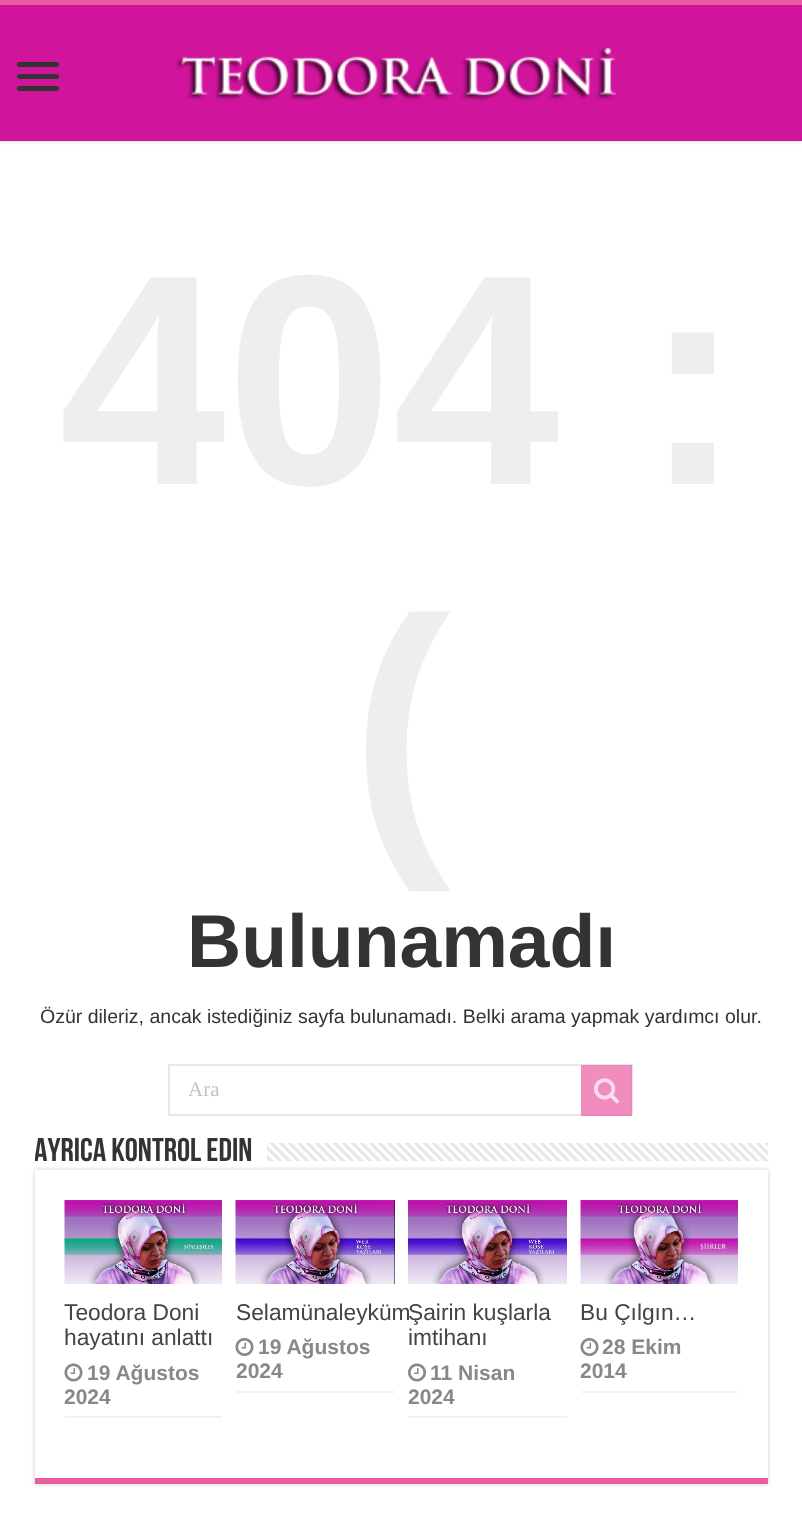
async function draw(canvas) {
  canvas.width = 802
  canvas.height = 1528
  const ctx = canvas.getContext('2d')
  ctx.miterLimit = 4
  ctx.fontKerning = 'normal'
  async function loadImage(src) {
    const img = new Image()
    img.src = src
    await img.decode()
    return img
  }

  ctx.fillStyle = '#fff'
  ctx.fillRect(0, 0, 802, 1528)
  ctx.fillStyle = '#cacaca'
  ctx.filter = 'blur(2px)'
  ctx.beginPath()
  ctx.rect(0, 0, 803, 141)
  ctx.fill()
  ctx.filter = 'none'
  ctx.fillStyle = '#d1149c'
  ctx.fillRect(0, 5, 802, 136)
  ctx.fillStyle = '#e95ca2'
  ctx.fillRect(0, 0, 802, 5)
  ctx.fillStyle = '#333'
  ctx.beginPath()
  ctx.roundRect(17, 62, 42, 5, 2.5)
  ctx.fill()
  ctx.beginPath()
  ctx.roundRect(17, 74, 42, 5, 2.5)
  ctx.fill()
  ctx.beginPath()
  ctx.roundRect(17, 86, 42, 5, 2.5)
  ctx.fill()
  ctx.drawImage(await loadImage('image0.png'), 177, 47, 440, 54)
  ctx.font = 'bold 300px Liberation Sans'
  ctx.fillStyle = '#eee'
  ctx.fillText('404 :', 59, 484)
  ctx.fillText('(', 351, 829)
  ctx.font = 'bold 75px Liberation Sans'
  ctx.fillStyle = '#333'
  ctx.fillText('Bulunamadı', 187, 967)
  ctx.font = '19.5px Liberation Sans'
  ctx.fillText('Özür dileriz, ancak istediğiniz sayfa bulunamadı. Belki arama yapmak yardımcı olur.', 40, 1023)
  ctx.strokeStyle = '#e8e8e8'
  ctx.lineWidth = 2
  ctx.strokeRect(169, 1065, 463, 50)
  ctx.font = '21px Liberation Serif'
  ctx.fillStyle = '#c5c5c5'
  ctx.fillText('Ara', 188, 1096)
  ctx.fillStyle = '#e95ca2b3'
  ctx.fillRect(581, 1065, 51, 51)
  ctx.drawImage(await loadImage('image1.png'), 594, 1078, 25, 26)
  ctx.save()
  ctx.beginPath()
  ctx.rect(35, 1131, 733, 39)
  ctx.clip()
  ctx.font = 'bold 33px Bebas Neue'
  ctx.fillStyle = '#333'
  ctx.fillText('Ayrıca Kontrol Edin', 34, 1161)
  ctx.restore()
  ctx.drawImage(await loadImage('image2.png'), 267, 1143, 501, 18)
  ctx.fillStyle = '#cacaca'
  ctx.filter = 'blur(2px)'
  ctx.beginPath()
  ctx.rect(35, 1170, 733, 314)
  ctx.fill()
  ctx.filter = 'none'
  ctx.fillStyle = '#fff'
  ctx.fillRect(35, 1170, 733, 308)
  ctx.fillStyle = '#e95ca2'
  ctx.fillRect(35, 1478, 733, 6)
  ctx.drawImage(await loadImage('image3.png'), 64, 1200, 158, 84)
  ctx.font = '22.75px Liberation Sans'
  ctx.fillStyle = '#444'
  ctx.fillText('Teodora Doni', 64, 1320)
  ctx.fillText('hayatını anlattı', 64, 1345)
  ctx.fillStyle = '#f2f2f2'
  ctx.fillRect(65, 1416, 157, 2)
  ctx.drawImage(await loadImage('image4.png'), 64, 1363, 19, 19)
  ctx.font = 'bold 21px Liberation Sans'
  ctx.fillStyle = '#888'
  ctx.fillText('19 Ağustos', 87, 1380)
  ctx.fillText('2024', 64, 1404)
  ctx.fillStyle = '#000'
  ctx.fillRect(394, 1200, 1, 84)
  ctx.drawImage(await loadImage('image5.png'), 235, 1200, 160, 84)
  ctx.font = '22.75px Liberation Sans'
  ctx.fillStyle = '#444'
  ctx.fillText('Selamünaleyküm', 236, 1320)
  ctx.fillStyle = '#f2f2f2'
  ctx.fillRect(236, 1391, 159, 2)
  ctx.drawImage(await loadImage('image6.png'), 235, 1338, 19, 18)
  ctx.font = 'bold 21px Liberation Sans'
  ctx.fillStyle = '#888'
  ctx.fillText('19 Ağustos', 258, 1354)
  ctx.fillText('2024', 236, 1378)
  ctx.drawImage(await loadImage('image7.png'), 408, 1200, 159, 84)
  ctx.font = '22.75px Liberation Sans'
  ctx.fillStyle = '#444'
  ctx.fillText('Şairin kuşlarla', 408, 1320)
  ctx.fillText('imtihanı', 408, 1345)
  ctx.fillStyle = '#f2f2f2'
  ctx.fillRect(408, 1416, 159, 2)
  ctx.drawImage(await loadImage('image8.png'), 408, 1363, 18, 19)
  ctx.font = 'bold 21px Liberation Sans'
  ctx.fillStyle = '#888'
  ctx.fillText('11 Nisan', 430, 1380)
  ctx.fillText('2024', 408, 1404)
  ctx.drawImage(await loadImage('image9.png'), 580, 1200, 158, 84)
  ctx.font = '22.75px Liberation Sans'
  ctx.fillStyle = '#444'
  ctx.fillText('Bu Çılgın…', 580, 1320)
  ctx.fillStyle = '#f2f2f2'
  ctx.fillRect(581, 1391, 157, 2)
  ctx.drawImage(await loadImage('image6.png'), 580, 1338, 19, 18)
  ctx.font = 'bold 21px Liberation Sans'
  ctx.fillStyle = '#888'
  ctx.fillText('28 Ekim', 602, 1354)
  ctx.fillText('2014', 580, 1378)
}

draw(document.querySelector('canvas'))
